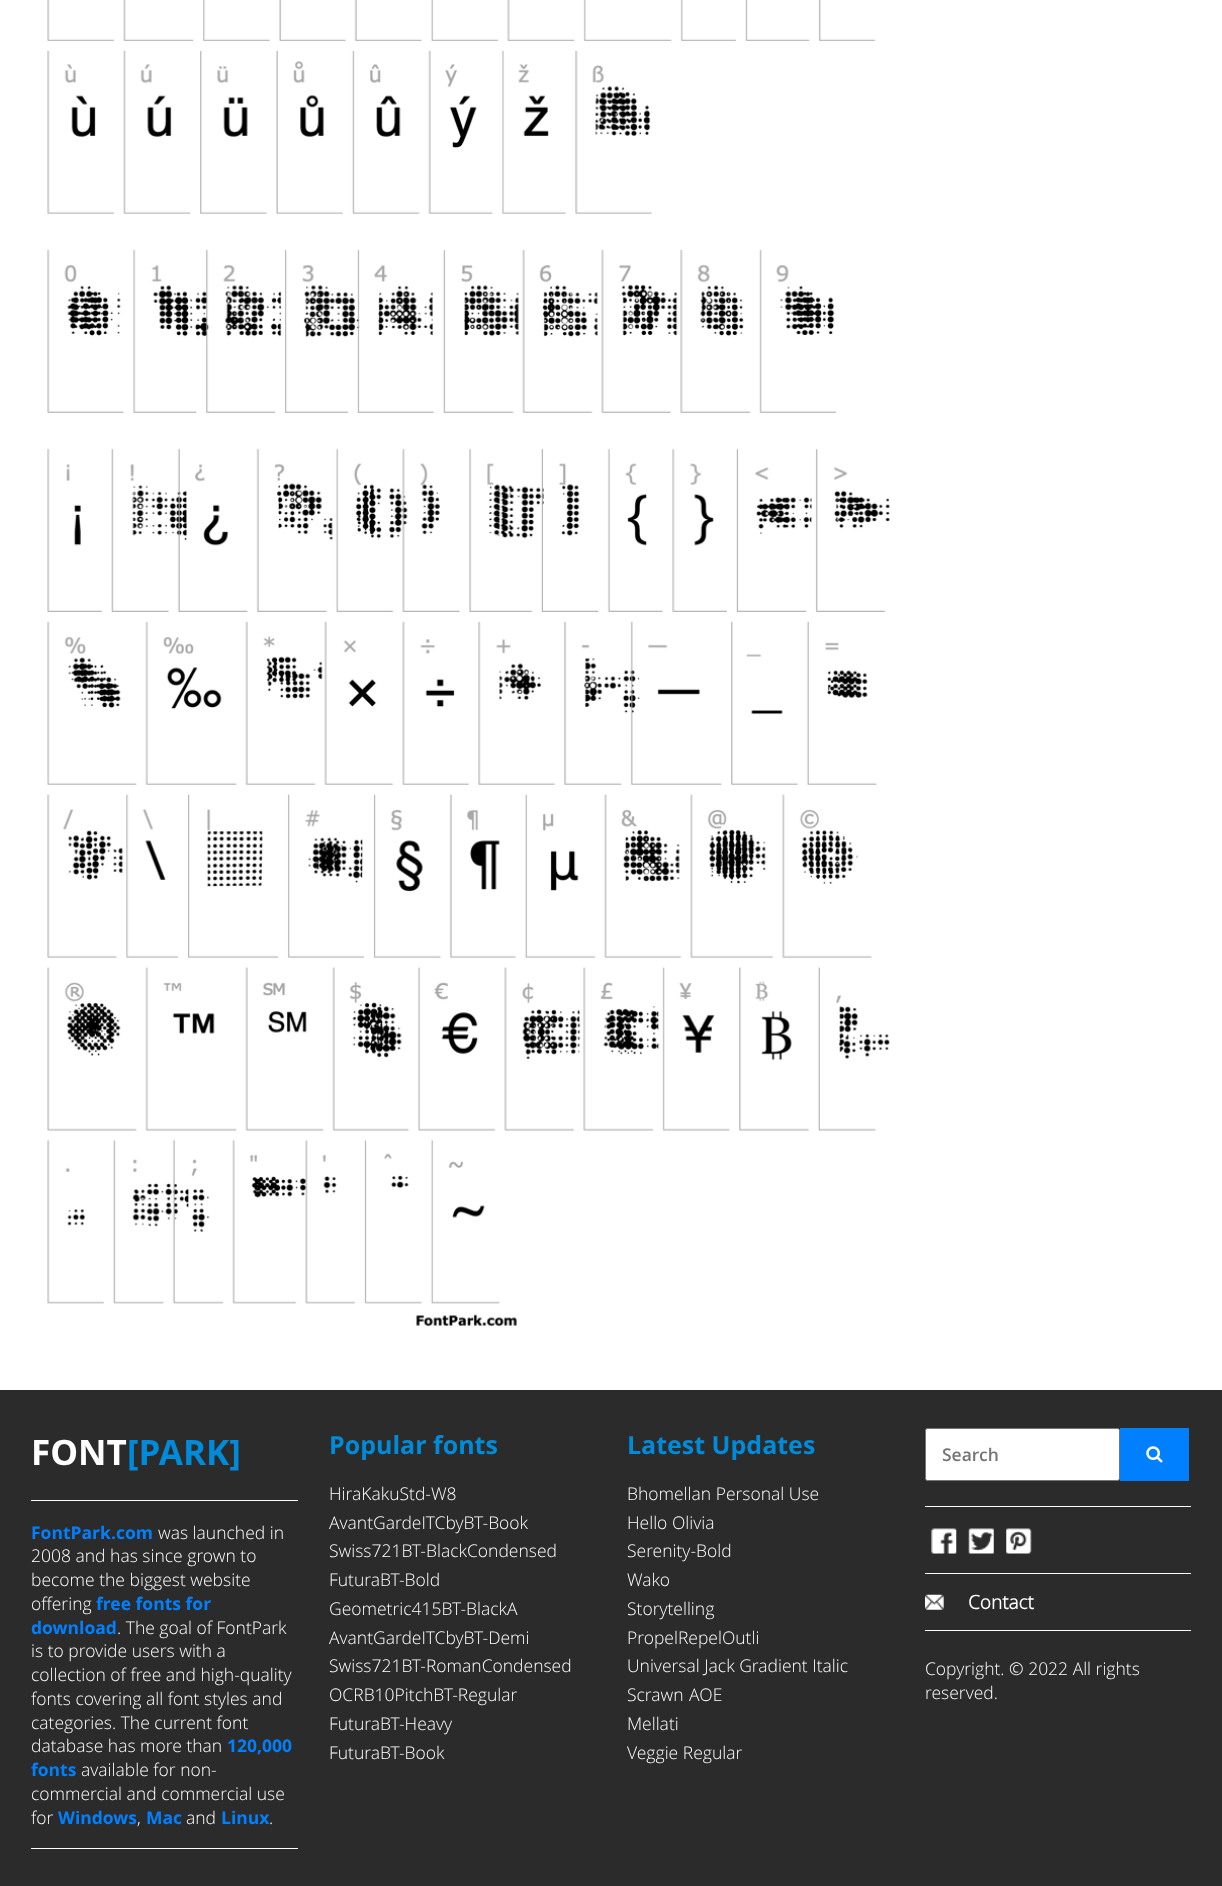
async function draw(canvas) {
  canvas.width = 1222
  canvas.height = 1886
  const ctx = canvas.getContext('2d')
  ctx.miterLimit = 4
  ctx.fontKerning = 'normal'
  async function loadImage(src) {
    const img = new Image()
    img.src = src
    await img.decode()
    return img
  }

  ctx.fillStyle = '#fff'
  ctx.fillRect(0, 0, 1222, 1886)
  ctx.drawImage(await loadImage('image0.png'), 47, 0, 843, 1327)
  ctx.fillStyle = '#2b2b2b'
  ctx.fillRect(0, 1390, 1222, 496)
  ctx.font = 'bold 35px Open Sans'
  ctx.fillStyle = '#fff'
  ctx.fillText('FONT', 31, 1465)
  ctx.fillStyle = '#008bda'
  ctx.fillText('[PARK]', 127, 1465)
  ctx.fillStyle = '#fff'
  ctx.fillRect(31, 1500, 267, 1)
  ctx.fillRect(31, 1848, 267, 1)
  ctx.font = 'bold 17.5px Open Sans'
  ctx.fillStyle = '#0080ff'
  ctx.fillText('FontPark.com', 31, 1539)
  ctx.font = '300 17.5px Open Sans'
  ctx.fillStyle = '#fff'
  ctx.fillText('was launched in', 158, 1539)
  ctx.fillText('2008 and has since grown to', 31, 1562)
  ctx.fillText('become the biggest website', 31, 1586)
  ctx.fillText('offering', 31, 1610)
  ctx.font = 'bold 17.5px Open Sans'
  ctx.fillStyle = '#0080ff'
  ctx.fillText('free fonts for', 96, 1610)
  ctx.fillText('download', 31, 1634)
  ctx.font = '300 17.5px Open Sans'
  ctx.fillStyle = '#fff'
  ctx.fillText('. The goal of FontPark', 117, 1634)
  ctx.fillText('is to provide users with a', 31, 1657)
  ctx.fillText('collection of free and high-quality', 31, 1681)
  ctx.fillText('fonts covering all font styles and', 31, 1705)
  ctx.fillText('categories. The current font', 31, 1729)
  ctx.fillText('database has more than', 31, 1752)
  ctx.font = 'bold 17.5px Open Sans'
  ctx.fillStyle = '#0080ff'
  ctx.fillText('120,000', 227, 1752)
  ctx.fillText('fonts', 31, 1776)
  ctx.font = '300 17.5px Open Sans'
  ctx.fillStyle = '#fff'
  ctx.fillText('available for non-', 81, 1776)
  ctx.fillText('commercial and commercial use', 31, 1800)
  ctx.fillText('for', 31, 1824)
  ctx.font = 'bold 17.5px Open Sans'
  ctx.fillStyle = '#0080ff'
  ctx.fillText('Windows', 58, 1824)
  ctx.font = '300 17.5px Open Sans'
  ctx.fillStyle = '#fff'
  ctx.fillText(',', 137, 1824)
  ctx.font = 'bold 17.5px Open Sans'
  ctx.fillStyle = '#0080ff'
  ctx.fillText('Mac', 146, 1824)
  ctx.font = '300 17.5px Open Sans'
  ctx.fillStyle = '#fff'
  ctx.fillText('and', 186, 1824)
  ctx.font = 'bold 17.5px Open Sans'
  ctx.fillStyle = '#0080ff'
  ctx.fillText('Linux', 221, 1824)
  ctx.font = '300 17.5px Open Sans'
  ctx.fillStyle = '#fff'
  ctx.fillText('.', 269, 1824)
  ctx.font = 'bold 25px Open Sans'
  ctx.fillStyle = '#008bda'
  ctx.fillText('Popular fonts', 329, 1454)
  ctx.font = '300 17.5px Open Sans'
  ctx.fillStyle = '#fff'
  ctx.fillText('HiraKakuStd-W8', 329, 1500)
  ctx.fillText('AvantGardeITCbyBT-Book', 329, 1529)
  ctx.fillText('Swiss721BT-BlackCondensed', 329, 1557)
  ctx.fillText('FuturaBT-Bold', 329, 1586)
  ctx.fillText('Geometric415BT-BlackA', 329, 1615)
  ctx.fillText('AvantGardeITCbyBT-Demi', 329, 1644)
  ctx.fillText('Swiss721BT-RomanCondensed', 329, 1672)
  ctx.fillText('OCRB10PitchBT-Regular', 329, 1701)
  ctx.fillText('FuturaBT-Heavy', 329, 1730)
  ctx.fillText('FuturaBT-Book', 329, 1759)
  ctx.font = 'bold 25px Open Sans'
  ctx.fillStyle = '#008bda'
  ctx.fillText('Latest Updates', 627, 1454)
  ctx.font = '300 17.5px Open Sans'
  ctx.fillStyle = '#fff'
  ctx.fillText('Bhomellan Personal Use', 627, 1500)
  ctx.fillText('Hello Olivia', 627, 1529)
  ctx.fillText('Serenity-Bold', 627, 1557)
  ctx.fillText('Wako', 627, 1586)
  ctx.fillText('Storytelling', 627, 1615)
  ctx.fillText('PropelRepelOutli', 627, 1644)
  ctx.fillText('Universal Jack Gradient Italic', 627, 1672)
  ctx.wordSpacing = '1px'
  ctx.fillText('Scrawn AOE', 627, 1701)
  ctx.wordSpacing = '0px'
  ctx.fillText('Mellati', 627, 1730)
  ctx.fillText('Veggie Regular', 627, 1759)
  ctx.beginPath()
  ctx.roundRect(925.5, 1428.5, 194, 52, 2)
  ctx.fill()
  ctx.strokeStyle = '#767676'
  ctx.stroke()
  ctx.font = '600 17.5px Open Sans'
  ctx.fillStyle = '#757575'
  ctx.fillText('Search', 942, 1461)
  ctx.fillStyle = '#0080ff'
  ctx.fillRect(1120, 1428, 69, 53)
  ctx.drawImage(await loadImage('image1.png'), 1146, 1446, 17, 17)
  ctx.fillStyle = '#fff'
  ctx.fillRect(925, 1506, 266, 1)
  ctx.fillRect(925, 1573, 266, 1)
  ctx.drawImage(await loadImage('image2.png'), 931, 1528, 26, 26)
  ctx.drawImage(await loadImage('image3.png'), 968, 1528, 26, 26)
  ctx.drawImage(await loadImage('image4.png'), 1006, 1528, 26, 26)
  ctx.fillRect(925, 1630, 266, 1)
  ctx.drawImage(await loadImage('image5.png'), 925, 1594, 19, 16)
  ctx.font = 'bold 19px "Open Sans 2"'
  ctx.fillText('Contact', 968, 1609)
  ctx.font = '300 17.5px Open Sans'
  ctx.fillText('Copyright. © 2022 All rights', 925, 1675)
  ctx.fillText('reserved.', 925, 1699)
}

draw(document.querySelector('canvas'))
